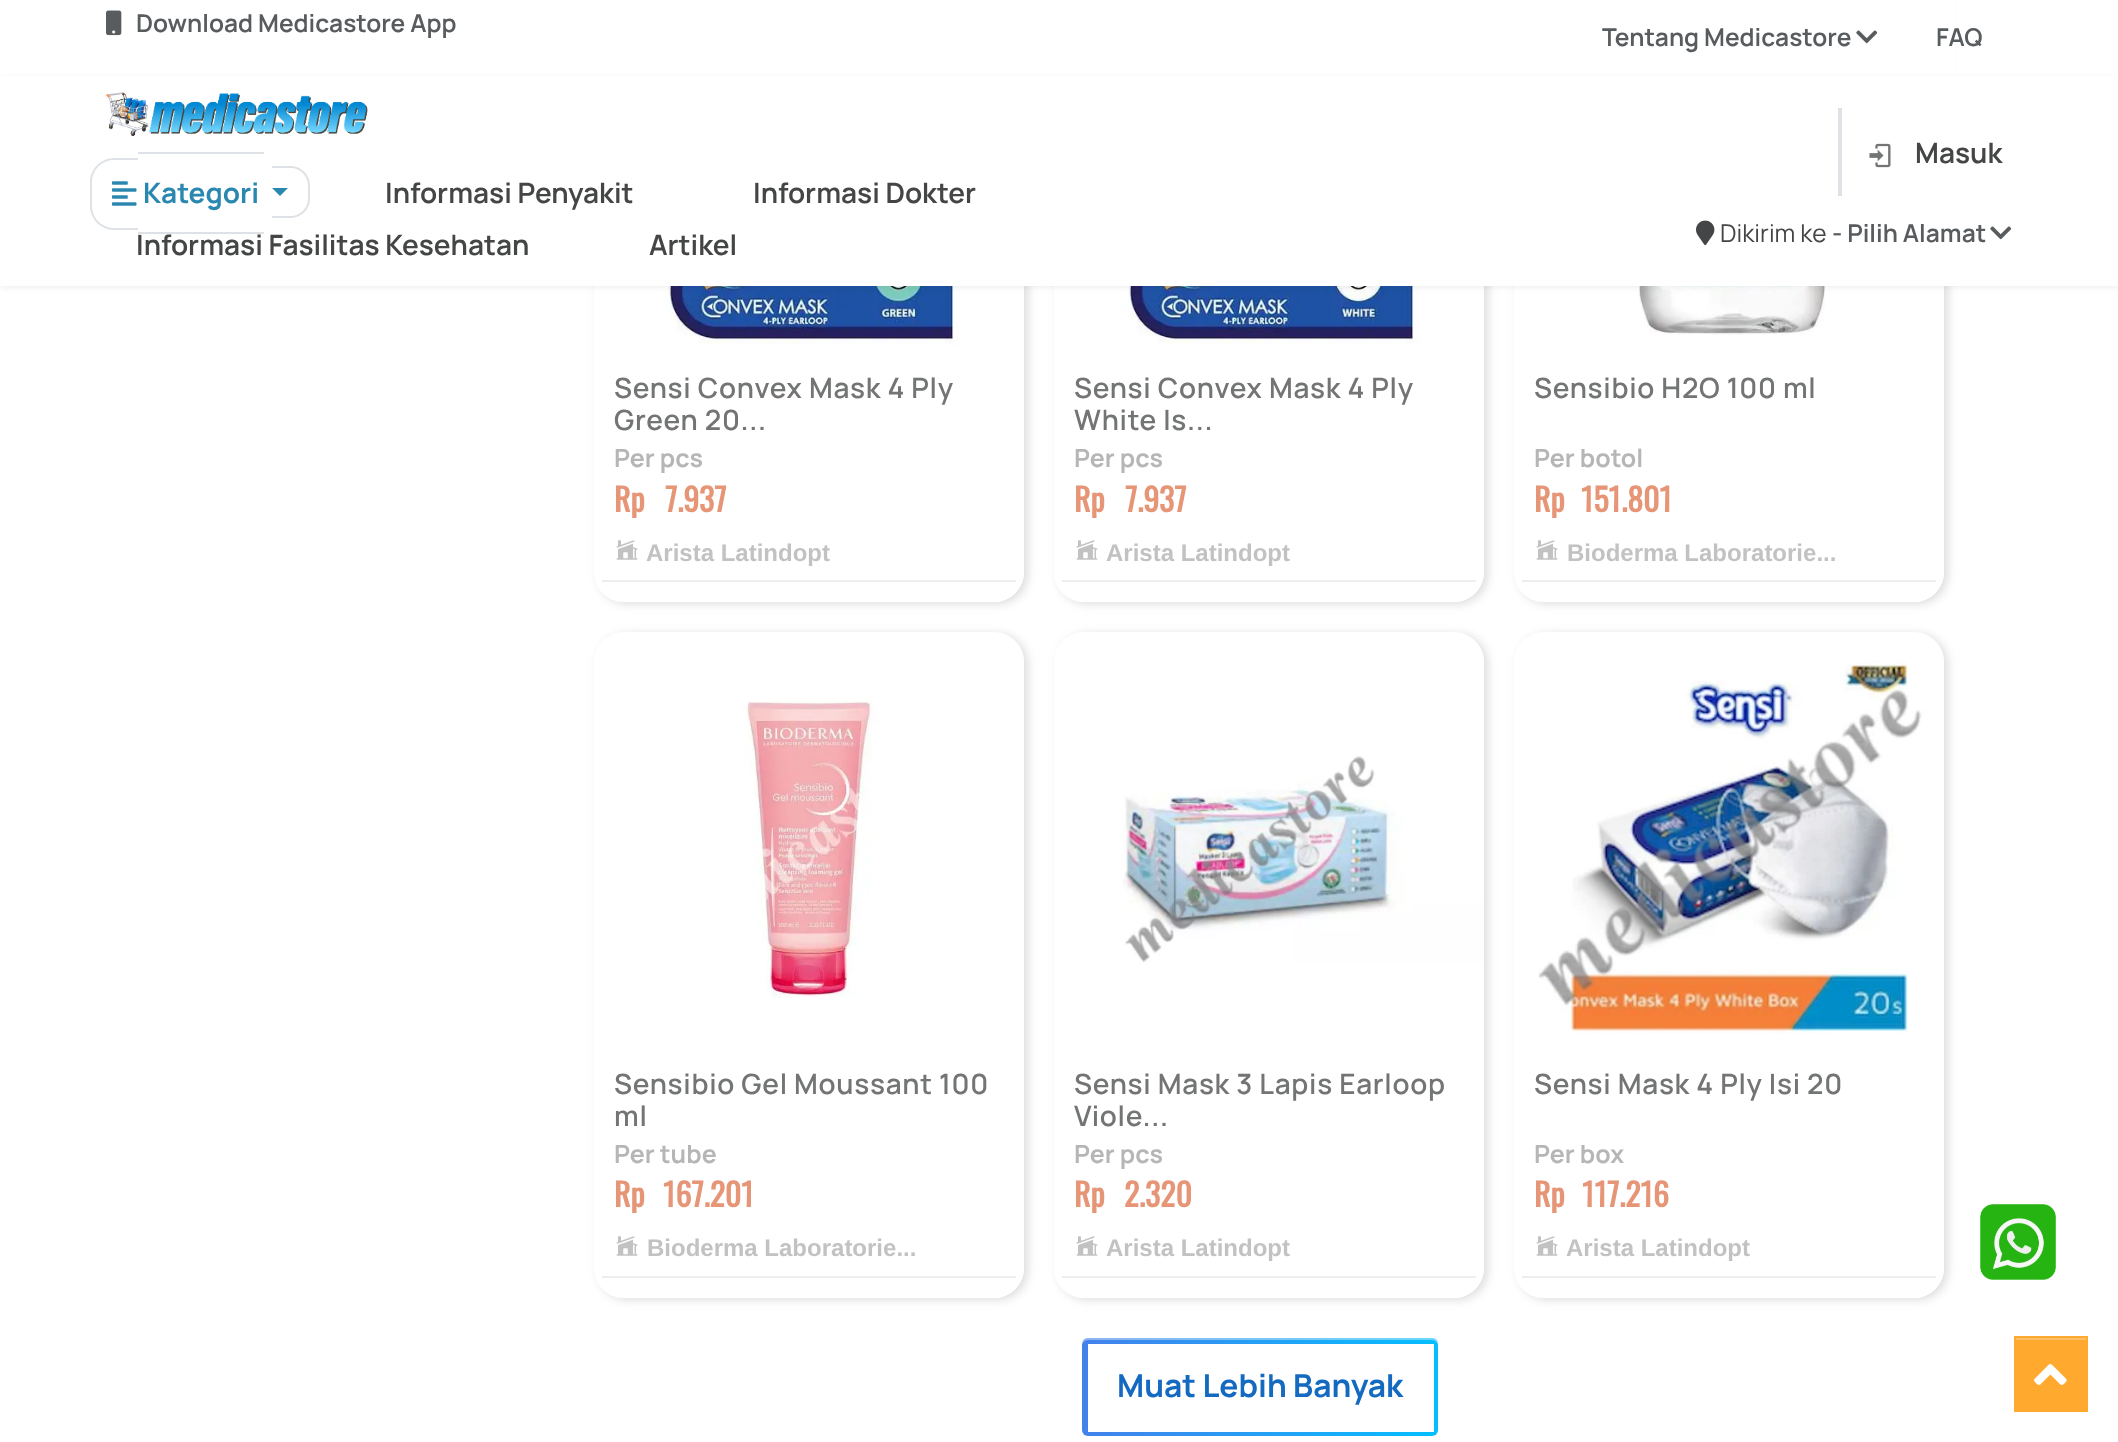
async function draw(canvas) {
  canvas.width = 2118
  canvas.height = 1442
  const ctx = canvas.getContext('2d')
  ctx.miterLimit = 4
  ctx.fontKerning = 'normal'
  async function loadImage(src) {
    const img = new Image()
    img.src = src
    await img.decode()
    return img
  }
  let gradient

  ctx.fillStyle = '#fff'
  ctx.fillRect(0, 0, 2118, 1442)
  ctx.save()
  ctx.beginPath()
  ctx.moveTo(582, 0)
  ctx.lineTo(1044, 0)
  ctx.lineTo(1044, 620)
  ctx.lineTo(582, 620)
  ctx.closePath()
  ctx.moveTo(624, -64)
  ctx.lineTo(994, -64)
  ctx.bezierCurveTo(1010.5, -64, 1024, -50.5, 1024, -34)
  ctx.lineTo(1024, 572)
  ctx.bezierCurveTo(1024, 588.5, 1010.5, 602, 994, 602)
  ctx.lineTo(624, 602)
  ctx.bezierCurveTo(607.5, 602, 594, 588.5, 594, 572)
  ctx.lineTo(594, -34)
  ctx.bezierCurveTo(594, -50.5, 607.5, -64, 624, -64)
  ctx.closePath()
  ctx.clip('evenodd')
  ctx.fillStyle = '#80808045'
  ctx.filter = 'blur(5px)'
  ctx.beginPath()
  ctx.roundRect(598, -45, 430, 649, 30)
  ctx.fill()
  ctx.filter = 'none'
  ctx.restore()
  ctx.save()
  ctx.beginPath()
  ctx.moveTo(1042, 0)
  ctx.lineTo(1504, 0)
  ctx.lineTo(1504, 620)
  ctx.lineTo(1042, 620)
  ctx.closePath()
  ctx.moveTo(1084, -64)
  ctx.lineTo(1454, -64)
  ctx.bezierCurveTo(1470.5, -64, 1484, -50.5, 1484, -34)
  ctx.lineTo(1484, 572)
  ctx.bezierCurveTo(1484, 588.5, 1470.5, 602, 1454, 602)
  ctx.lineTo(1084, 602)
  ctx.bezierCurveTo(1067.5, 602, 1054, 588.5, 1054, 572)
  ctx.lineTo(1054, -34)
  ctx.bezierCurveTo(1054, -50.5, 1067.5, -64, 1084, -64)
  ctx.closePath()
  ctx.clip('evenodd')
  ctx.fillStyle = '#80808045'
  ctx.filter = 'blur(5px)'
  ctx.beginPath()
  ctx.roundRect(1058, -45, 430, 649, 30)
  ctx.fill()
  ctx.filter = 'none'
  ctx.restore()
  ctx.save()
  ctx.beginPath()
  ctx.moveTo(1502, 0)
  ctx.lineTo(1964, 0)
  ctx.lineTo(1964, 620)
  ctx.lineTo(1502, 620)
  ctx.closePath()
  ctx.moveTo(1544, -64)
  ctx.lineTo(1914, -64)
  ctx.bezierCurveTo(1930.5, -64, 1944, -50.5, 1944, -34)
  ctx.lineTo(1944, 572)
  ctx.bezierCurveTo(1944, 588.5, 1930.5, 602, 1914, 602)
  ctx.lineTo(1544, 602)
  ctx.bezierCurveTo(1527.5, 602, 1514, 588.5, 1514, 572)
  ctx.lineTo(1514, -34)
  ctx.bezierCurveTo(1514, -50.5, 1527.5, -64, 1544, -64)
  ctx.closePath()
  ctx.clip('evenodd')
  ctx.fillStyle = '#80808045'
  ctx.filter = 'blur(5px)'
  ctx.beginPath()
  ctx.roundRect(1518, -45, 430, 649, 30)
  ctx.fill()
  ctx.filter = 'none'
  ctx.restore()
  ctx.fillRect(591, 0, 1364, 76)
  ctx.drawImage(await loadImage('image0.png'), 106, 10, 16, 26)
  ctx.font = '600 24.5px "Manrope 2"'
  ctx.fillStyle = '#595c5f'
  ctx.fillText('Download Medicastore App', 136, 32)
  ctx.fillText('Tentang Medicastore', 1602, 46)
  ctx.drawImage(await loadImage('image1.png'), 1856, 30, 22, 14)
  ctx.fillText('FAQ', 1936, 46)
  ctx.drawImage(await loadImage('image6.png'), 647, 286, 332, 60)
  ctx.drawImage(await loadImage('image8.png'), 1107, 286, 332, 60)
  ctx.drawImage(await loadImage('image9.png'), 1638, 286, 187, 49)
  ctx.fillStyle = '#21252912'
  ctx.filter = 'blur(2.5px)'
  ctx.beginPath()
  ctx.rect(0, 78, 2118, 210)
  ctx.fill()
  ctx.filter = 'none'
  ctx.fillStyle = '#fff'
  ctx.fillRect(0, 76, 2118, 210)
  ctx.drawImage(await loadImage('image2.png'), 106, 92, 262, 44)
  ctx.fillStyle = '#dee2e6'
  ctx.beginPath()
  ctx.moveTo(114, 158)
  ctx.lineTo(138, 158)
  ctx.lineTo(138, 230)
  ctx.lineTo(114, 230)
  ctx.bezierCurveTo(101, 230, 90, 219, 90, 206)
  ctx.lineTo(90, 182)
  ctx.bezierCurveTo(90, 169, 101, 158, 114, 158)
  ctx.closePath()
  ctx.moveTo(114, 160)
  ctx.lineTo(138, 160)
  ctx.lineTo(138, 228)
  ctx.lineTo(114, 228)
  ctx.bezierCurveTo(102, 228, 92, 218, 92, 206)
  ctx.lineTo(92, 182)
  ctx.bezierCurveTo(92, 170, 102, 160, 114, 160)
  ctx.closePath()
  ctx.fill('evenodd')
  ctx.fillRect(138, 152, 126, 2)
  ctx.fillRect(138, 232, 126, 2)
  ctx.beginPath()
  ctx.moveTo(272, 166)
  ctx.lineTo(291, 166)
  ctx.bezierCurveTo(301, 166, 310, 175, 310, 185)
  ctx.lineTo(310, 199)
  ctx.bezierCurveTo(310, 209, 301, 218, 291, 218)
  ctx.lineTo(272, 218)
  ctx.closePath()
  ctx.moveTo(272, 168)
  ctx.lineTo(291, 168)
  ctx.bezierCurveTo(300, 168, 308, 176, 308, 185)
  ctx.lineTo(308, 199)
  ctx.bezierCurveTo(308, 208, 300, 216, 291, 216)
  ctx.lineTo(272, 216)
  ctx.closePath()
  ctx.fill('evenodd')
  ctx.drawImage(await loadImage('image3.png'), 112, 181, 25, 25)
  ctx.font = 'bold 28px Manrope'
  ctx.fillStyle = '#2a87af'
  ctx.fillText('Kategori', 143, 203)
  ctx.beginPath()
  ctx.moveTo(272, 188)
  ctx.lineTo(288, 188)
  ctx.lineTo(280, 196)
  ctx.closePath()
  ctx.fill()
  ctx.font = '600 28px "Manrope 2"'
  ctx.fillStyle = '#444645'
  ctx.fillText('Informasi Penyakit', 385, 203)
  ctx.fillText('Informasi Dokter', 753, 203)
  ctx.fillText('Informasi Fasilitas Kesehatan', 136, 255)
  ctx.fillText('Artikel', 649, 255)
  ctx.fillStyle = '#dee2e6'
  ctx.fillRect(1838, 108, 4, 88)
  ctx.drawImage(await loadImage('image4.png'), 1869, 143, 22, 25)
  ctx.fillStyle = '#444645'
  ctx.fillText('Masuk', 1915, 163)
  ctx.drawImage(await loadImage('image5.png'), 1696, 220, 19, 25)
  ctx.font = '24.5px Manrope'
  ctx.fillText('Dikirim ke', 1720, 242)
  ctx.font = '600 24.5px "Manrope 2"'
  ctx.fillStyle = '#595c5f'
  ctx.fillText('- Pilih Alamat', 1832, 242)
  ctx.drawImage(await loadImage('image1.png'), 1990, 226, 22, 14)
  ctx.fillStyle = '#fff'
  ctx.beginPath()
  ctx.roundRect(594, 366, 430, 236, [0, 0, 30, 30])
  ctx.fill()
  ctx.letterSpacing = '0.7px'
  ctx.font = '600 28px Manrope'
  ctx.fillStyle = '#737474'
  ctx.fillText('Sensi Convex Mask 4 Ply', 614, 398)
  ctx.fillText('Green 20...', 614, 430)
  ctx.letterSpacing = '0px'
  ctx.font = 'bold 25px Manrope'
  ctx.fillStyle = '#b6b6b6'
  ctx.fillText('Per pcs', 614, 467)
  ctx.wordSpacing = '13px'
  ctx.font = 'bold 31.75px Oswald'
  ctx.fillStyle = '#e69577'
  ctx.fillText('Rp 7.937', 614, 512)
  ctx.fillStyle = '#eee'
  ctx.fillRect(602, 580, 414, 2)
  ctx.drawImage(await loadImage('image7.png'), 616, 540, 22, 20)
  ctx.wordSpacing = '0px'
  ctx.font = 'bold 24px Liberation Sans'
  ctx.fillStyle = '#c2c2c2'
  ctx.fillText('Arista Latindopt', 646, 561)
  ctx.fillStyle = '#fff'
  ctx.beginPath()
  ctx.roundRect(1054, 366, 430, 236, [0, 0, 30, 30])
  ctx.fill()
  ctx.letterSpacing = '0.7px'
  ctx.font = '600 28px Manrope'
  ctx.fillStyle = '#737474'
  ctx.fillText('Sensi Convex Mask 4 Ply', 1074, 398)
  ctx.fillText('White Is...', 1074, 430)
  ctx.letterSpacing = '0px'
  ctx.font = 'bold 25px Manrope'
  ctx.fillStyle = '#b6b6b6'
  ctx.fillText('Per pcs', 1074, 467)
  ctx.wordSpacing = '13px'
  ctx.font = 'bold 31.75px Oswald'
  ctx.fillStyle = '#e69577'
  ctx.fillText('Rp 7.937', 1074, 512)
  ctx.fillStyle = '#eee'
  ctx.fillRect(1062, 580, 414, 2)
  ctx.drawImage(await loadImage('image7.png'), 1076, 540, 22, 20)
  ctx.wordSpacing = '0px'
  ctx.font = 'bold 24px Liberation Sans'
  ctx.fillStyle = '#c2c2c2'
  ctx.fillText('Arista Latindopt', 1106, 561)
  ctx.fillStyle = '#fff'
  ctx.beginPath()
  ctx.roundRect(1514, 366, 430, 236, [0, 0, 30, 30])
  ctx.fill()
  ctx.letterSpacing = '0.7px'
  ctx.font = '600 28px Manrope'
  ctx.fillStyle = '#737474'
  ctx.fillText('Sensibio H2O 100 ml', 1534, 398)
  ctx.letterSpacing = '0px'
  ctx.font = 'bold 25px Manrope'
  ctx.fillStyle = '#b6b6b6'
  ctx.fillText('Per botol', 1534, 467)
  ctx.wordSpacing = '9px'
  ctx.font = 'bold 31.75px Oswald'
  ctx.fillStyle = '#e69577'
  ctx.fillText('Rp 151.801', 1534, 512)
  ctx.fillStyle = '#eee'
  ctx.fillRect(1522, 580, 414, 2)
  ctx.drawImage(await loadImage('image7.png'), 1536, 540, 22, 20)
  ctx.wordSpacing = '0px'
  ctx.font = 'bold 24px Liberation Sans'
  ctx.fillStyle = '#c2c2c2'
  ctx.fillText('Bioderma Laboratorie...', 1567, 561)
  ctx.save()
  ctx.beginPath()
  ctx.moveTo(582, 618)
  ctx.lineTo(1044, 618)
  ctx.lineTo(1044, 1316)
  ctx.lineTo(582, 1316)
  ctx.closePath()
  ctx.moveTo(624, 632)
  ctx.lineTo(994, 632)
  ctx.bezierCurveTo(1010.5, 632, 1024, 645.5, 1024, 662)
  ctx.lineTo(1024, 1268)
  ctx.bezierCurveTo(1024, 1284.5, 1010.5, 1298, 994, 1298)
  ctx.lineTo(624, 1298)
  ctx.bezierCurveTo(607.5, 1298, 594, 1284.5, 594, 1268)
  ctx.lineTo(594, 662)
  ctx.bezierCurveTo(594, 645.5, 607.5, 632, 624, 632)
  ctx.closePath()
  ctx.clip('evenodd')
  ctx.fillStyle = '#80808045'
  ctx.filter = 'blur(5px)'
  ctx.beginPath()
  ctx.roundRect(598, 634, 430, 666, 30)
  ctx.fill()
  ctx.filter = 'none'
  ctx.restore()
  ctx.drawImage(await loadImage('image10.png'), 743, 642, 281, 356)
  ctx.fillStyle = '#fff'
  ctx.beginPath()
  ctx.roundRect(594, 1062, 430, 236, [0, 0, 30, 30])
  ctx.fill()
  ctx.letterSpacing = '0.7px'
  ctx.font = '600 28px Manrope'
  ctx.fillStyle = '#737474'
  ctx.fillText('Sensibio Gel Moussant 100', 614, 1094)
  ctx.fillText('ml', 614, 1126)
  ctx.letterSpacing = '0px'
  ctx.font = 'bold 25px Manrope'
  ctx.fillStyle = '#b6b6b6'
  ctx.fillText('Per tube', 614, 1163)
  ctx.wordSpacing = '11px'
  ctx.font = 'bold 31.75px Oswald'
  ctx.fillStyle = '#e69577'
  ctx.fillText('Rp 167.201', 614, 1207)
  ctx.fillStyle = '#eee'
  ctx.fillRect(602, 1276, 414, 2)
  ctx.drawImage(await loadImage('image7.png'), 616, 1236, 22, 20)
  ctx.wordSpacing = '0px'
  ctx.font = 'bold 24px Liberation Sans'
  ctx.fillStyle = '#c2c2c2'
  ctx.fillText('Bioderma Laboratorie...', 647, 1256)
  ctx.save()
  ctx.beginPath()
  ctx.moveTo(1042, 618)
  ctx.lineTo(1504, 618)
  ctx.lineTo(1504, 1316)
  ctx.lineTo(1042, 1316)
  ctx.closePath()
  ctx.moveTo(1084, 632)
  ctx.lineTo(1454, 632)
  ctx.bezierCurveTo(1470.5, 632, 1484, 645.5, 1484, 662)
  ctx.lineTo(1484, 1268)
  ctx.bezierCurveTo(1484, 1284.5, 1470.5, 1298, 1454, 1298)
  ctx.lineTo(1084, 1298)
  ctx.bezierCurveTo(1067.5, 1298, 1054, 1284.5, 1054, 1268)
  ctx.lineTo(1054, 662)
  ctx.bezierCurveTo(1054, 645.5, 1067.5, 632, 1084, 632)
  ctx.closePath()
  ctx.clip('evenodd')
  ctx.fillStyle = '#80808045'
  ctx.filter = 'blur(5px)'
  ctx.beginPath()
  ctx.roundRect(1058, 634, 430, 666, 30)
  ctx.fill()
  ctx.filter = 'none'
  ctx.restore()
  ctx.drawImage(await loadImage('image11.png'), 1122, 643, 362, 320)
  ctx.fillStyle = '#fff'
  ctx.beginPath()
  ctx.roundRect(1054, 1062, 430, 236, [0, 0, 30, 30])
  ctx.fill()
  ctx.letterSpacing = '0.7px'
  ctx.font = '600 28px Manrope'
  ctx.fillStyle = '#737474'
  ctx.fillText('Sensi Mask 3 Lapis Earloop', 1074, 1094)
  ctx.fillText('Viole...', 1074, 1126)
  ctx.letterSpacing = '0px'
  ctx.font = 'bold 25px Manrope'
  ctx.fillStyle = '#b6b6b6'
  ctx.fillText('Per pcs', 1074, 1163)
  ctx.wordSpacing = '12px'
  ctx.font = 'bold 31.75px Oswald'
  ctx.fillStyle = '#e69577'
  ctx.fillText('Rp 2.320', 1074, 1207)
  ctx.fillStyle = '#eee'
  ctx.fillRect(1062, 1276, 414, 2)
  ctx.drawImage(await loadImage('image7.png'), 1076, 1236, 22, 20)
  ctx.wordSpacing = '0px'
  ctx.font = 'bold 24px Liberation Sans'
  ctx.fillStyle = '#c2c2c2'
  ctx.fillText('Arista Latindopt', 1106, 1256)
  ctx.save()
  ctx.beginPath()
  ctx.moveTo(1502, 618)
  ctx.lineTo(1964, 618)
  ctx.lineTo(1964, 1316)
  ctx.lineTo(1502, 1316)
  ctx.closePath()
  ctx.moveTo(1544, 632)
  ctx.lineTo(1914, 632)
  ctx.bezierCurveTo(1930.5, 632, 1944, 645.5, 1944, 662)
  ctx.lineTo(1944, 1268)
  ctx.bezierCurveTo(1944, 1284.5, 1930.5, 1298, 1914, 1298)
  ctx.lineTo(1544, 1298)
  ctx.bezierCurveTo(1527.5, 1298, 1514, 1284.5, 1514, 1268)
  ctx.lineTo(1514, 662)
  ctx.bezierCurveTo(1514, 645.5, 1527.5, 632, 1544, 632)
  ctx.closePath()
  ctx.clip('evenodd')
  ctx.fillStyle = '#80808045'
  ctx.filter = 'blur(5px)'
  ctx.beginPath()
  ctx.roundRect(1518, 634, 430, 666, 30)
  ctx.fill()
  ctx.filter = 'none'
  ctx.restore()
  ctx.drawImage(await loadImage('image12.png'), 1538, 643, 406, 391)
  ctx.fillStyle = '#fff'
  ctx.beginPath()
  ctx.roundRect(1514, 1062, 430, 236, [0, 0, 30, 30])
  ctx.fill()
  ctx.letterSpacing = '0.7px'
  ctx.font = '600 28px Manrope'
  ctx.fillStyle = '#737474'
  ctx.fillText('Sensi Mask 4 Ply Isi 20', 1534, 1094)
  ctx.letterSpacing = '0px'
  ctx.font = 'bold 25px Manrope'
  ctx.fillStyle = '#b6b6b6'
  ctx.fillText('Per box', 1534, 1163)
  ctx.wordSpacing = '10px'
  ctx.font = 'bold 31.75px Oswald'
  ctx.fillStyle = '#e69577'
  ctx.fillText('Rp 117.216', 1534, 1207)
  ctx.fillStyle = '#eee'
  ctx.fillRect(1522, 1276, 414, 2)
  ctx.drawImage(await loadImage('image7.png'), 1536, 1236, 22, 20)
  ctx.wordSpacing = '0px'
  ctx.font = 'bold 24px Liberation Sans'
  ctx.fillStyle = '#c2c2c2'
  ctx.fillText('Arista Latindopt', 1566, 1256)
  gradient = ctx.createLinearGradient(1082, 1387, 1438, 1387)
  gradient.addColorStop(0, '#4481eb')
  gradient.addColorStop(1, '#04befe')
  ctx.fillStyle = gradient
  ctx.beginPath()
  ctx.roundRect(1082, 1338, 356, 98, 6)
  ctx.fill()
  ctx.fillStyle = '#ffffff66'
  ctx.beginPath()
  ctx.moveTo(1088, 1340)
  ctx.lineTo(1432, 1340)
  ctx.bezierCurveTo(1435, 1340, 1438, 1343, 1438, 1346)
  ctx.lineTo(1438, 1344)
  ctx.bezierCurveTo(1438, 1341, 1435, 1338, 1432, 1338)
  ctx.lineTo(1088, 1338)
  ctx.bezierCurveTo(1085, 1338, 1082, 1341, 1082, 1344)
  ctx.lineTo(1082, 1346)
  ctx.bezierCurveTo(1082, 1343, 1085, 1340, 1088, 1340)
  ctx.closePath()
  ctx.fill()
  ctx.fillStyle = '#fff'
  ctx.fillRect(1088, 1344, 346, 88)
  ctx.font = 'bold 31.75px Manrope'
  ctx.fillStyle = '#1469c0'
  ctx.fillText('Muat Lebih Banyak', 1117, 1397)
  ctx.drawImage(await loadImage('image13.png'), 1980, 1204, 76, 76)
  ctx.fillStyle = '#ffaa2e'
  ctx.fillRect(2014, 1336, 74, 76)
  ctx.fillStyle = '#ffbf62'
  ctx.fillRect(2016, 1338, 70, 2)
  ctx.drawImage(await loadImage('image14.png'), 2034, 1364, 33, 21)
}

draw(document.querySelector('canvas'))
